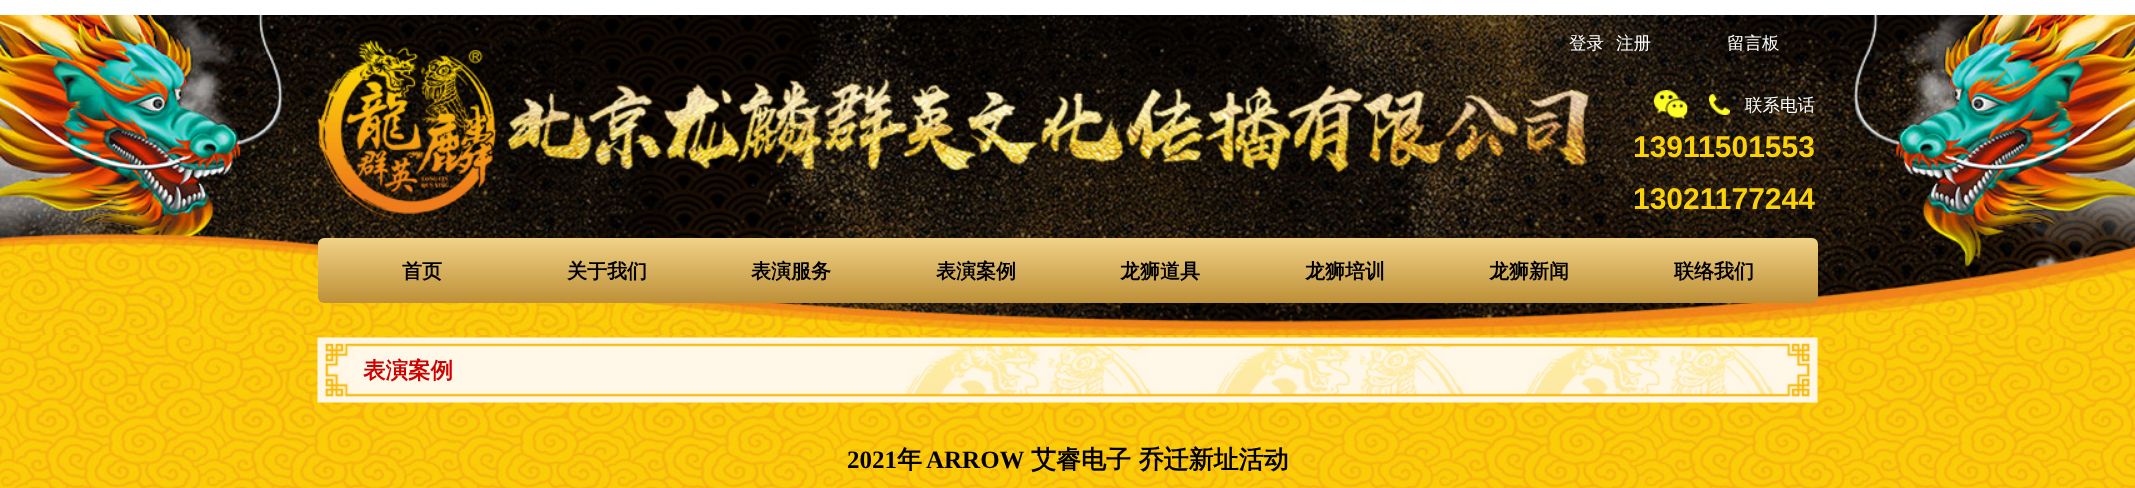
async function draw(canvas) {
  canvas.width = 2135
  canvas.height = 488
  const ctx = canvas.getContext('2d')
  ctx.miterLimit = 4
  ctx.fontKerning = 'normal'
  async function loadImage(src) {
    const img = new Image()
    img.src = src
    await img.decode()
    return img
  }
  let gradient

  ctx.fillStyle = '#fff'
  ctx.fillRect(0, 0, 2135, 488)
  ctx.drawImage(await loadImage('image0.png'), 0, 15, 2135, 320)
  ctx.drawImage(await loadImage('image1.png'), 317, 40, 1272, 179)
  ctx.font = '500 17.5px WenQuanYi Zen Hei'
  ctx.fillText('登录', 1569, 49)
  ctx.fillText('注册', 1616, 49)
  ctx.drawImage(await loadImage('image2.png'), 1653, 90, 35, 29)
  ctx.drawImage(await loadImage('image3.png'), 1708, 93, 22, 22)
  ctx.fillText('留言板', 1727, 49)
  ctx.fillText('联系电话', 1745, 111)
  ctx.font = 'bold 30px Liberation Sans'
  ctx.fillStyle = '#fbd207'
  ctx.fillText('13911501553', 1633, 157)
  ctx.fillText('13021177244', 1633, 209)
  gradient = ctx.createLinearGradient(318, 238, 318, 303)
  gradient.addColorStop(0, '#f1d287')
  gradient.addColorStop(1, '#bd9038')
  ctx.fillStyle = gradient
  ctx.beginPath()
  ctx.roundRect(318, 238, 1500, 65, 6)
  ctx.fill()
  ctx.font = 'bold 20px WenQuanYi Zen Hei'
  ctx.fillStyle = '#000'
  ctx.fillText('首页', 402, 278)
  ctx.fillText('关于我们', 567, 278)
  ctx.fillText('表演服务', 751, 278)
  ctx.fillText('表演案例', 936, 278)
  ctx.fillText('龙狮道具', 1120, 278)
  ctx.fillText('龙狮培训', 1305, 278)
  ctx.fillText('龙狮新闻', 1489, 278)
  ctx.fillText('联络我们', 1674, 278)
  ctx.drawImage(await loadImage('image4.png'), 0, 335, 2135, 153)
  ctx.drawImage(await loadImage('image5.png'), 317, 337, 1501, 66)
  ctx.font = 'bold 22.5px WenQuanYi Zen Hei'
  ctx.fillStyle = '#ce0100'
  ctx.fillText('表演案例', 363, 378)
  ctx.font = 'bold 25px Liberation Serif'
  ctx.fillStyle = '#000'
  ctx.fillText('2021', 847, 468)
  ctx.font = 'bold 25px WenQuanYi Zen Hei'
  ctx.fillText('年', 897, 468)
  ctx.font = 'bold 25px Liberation Serif'
  ctx.fillText('ARROW', 926, 468)
  ctx.font = 'bold 25px WenQuanYi Zen Hei'
  ctx.fillText('艾睿电子 乔迁新址活动', 1031, 468)
}

draw(document.querySelector('canvas'))
